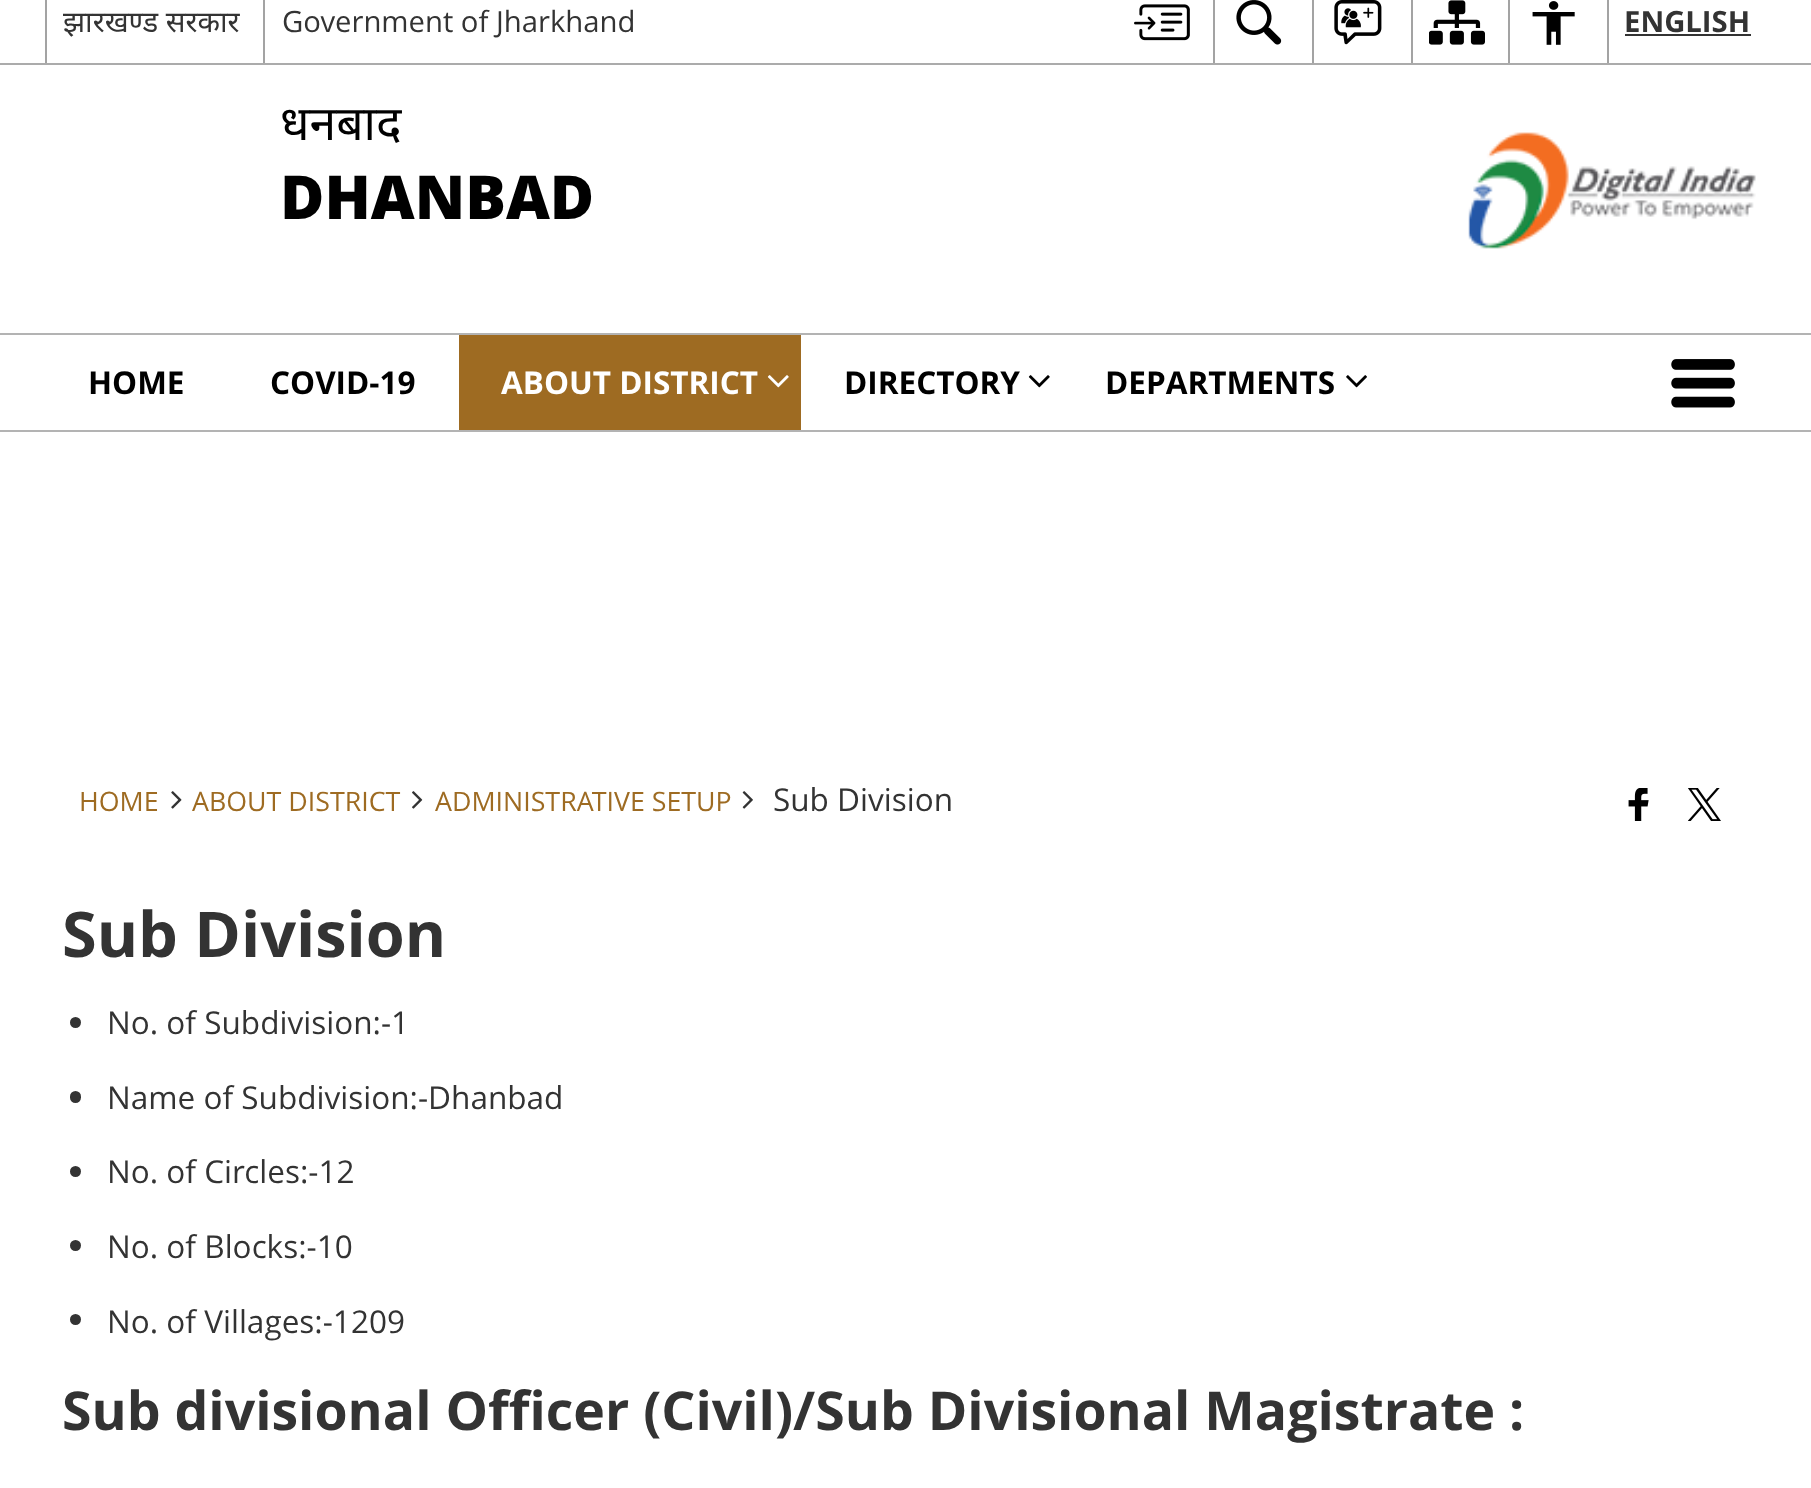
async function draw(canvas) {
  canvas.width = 1811
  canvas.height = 1488
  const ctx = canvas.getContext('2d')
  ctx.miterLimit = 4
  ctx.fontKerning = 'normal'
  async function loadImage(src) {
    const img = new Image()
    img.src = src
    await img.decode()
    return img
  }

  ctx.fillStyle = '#fff'
  ctx.fillRect(0, 0, 1811, 1488)
  ctx.fillStyle = '#ababab'
  ctx.fillRect(0, 63, 1811, 2)
  ctx.fillStyle = '#a3a3a3'
  ctx.fillRect(45, 0, 2, 63)
  ctx.font = '29.25px Noto Sans'
  ctx.fillStyle = '#333'
  ctx.fillText('झारखण्ड सरकार', 63, 32)
  ctx.fillStyle = '#a3a3a3'
  ctx.fillRect(263, 0, 2, 63)
  ctx.font = '29.25px Open Sans'
  ctx.fillStyle = '#333'
  ctx.fillText('Government of Jharkhand', 282, 32)
  ctx.drawImage(await loadImage('image0.png'), 1134, 4, 56, 37)
  ctx.fillStyle = '#a3a3a3'
  ctx.fillRect(1213, 0, 2, 63)
  ctx.drawImage(await loadImage('image1.png'), 1236, 0, 46, 45)
  ctx.fillRect(1312, 0, 2, 63)
  ctx.drawImage(await loadImage('image2.png'), 1334, 0, 48, 45)
  ctx.fillRect(1411, 0, 2, 63)
  ctx.drawImage(await loadImage('image3.png'), 1429, 0, 56, 45)
  ctx.fillRect(1508, 0, 2, 63)
  ctx.drawImage(await loadImage('image4.png'), 1532, 1, 43, 44)
  ctx.fillRect(1607, 0, 2, 63)
  ctx.font = 'bold 29.25px Open Sans'
  ctx.fillStyle = '#333'
  ctx.fillText('ENGLISH', 1624, 32)
  ctx.fillRect(1625, 34, 126, 2)
  ctx.font = '48px Noto Sans'
  ctx.fillStyle = '#000'
  ctx.fillText('धनबाद', 280, 140)
  ctx.font = '800 60.5px Open Sans'
  ctx.fillText('DHANBAD', 280, 219)
  ctx.drawImage(await loadImage('image5.png'), 1468, 132, 288, 117)
  ctx.fillStyle = '#b3b3b3'
  ctx.fillRect(0, 333, 1811, 2)
  ctx.fillRect(0, 430, 1811, 2)
  ctx.font = 'bold 31.5px Open Sans'
  ctx.fillStyle = '#000'
  ctx.fillText('HOME', 88, 394)
  ctx.fillText('COVID-19', 270, 394)
  ctx.fillStyle = '#9e6b22'
  ctx.fillRect(459, 335, 342, 95)
  ctx.fillStyle = '#fff'
  ctx.fillText('ABOUT DISTRICT', 501, 394)
  ctx.drawImage(await loadImage('image6.png'), 767, 375, 22, 13)
  ctx.fillStyle = '#000'
  ctx.fillText('DIRECTORY', 844, 394)
  ctx.drawImage(await loadImage('image7.png'), 1028, 375, 22, 13)
  ctx.fillText('DEPARTMENTS', 1105, 394)
  ctx.drawImage(await loadImage('image8.png'), 1346, 375, 21, 13)
  ctx.drawImage(await loadImage('image9.png'), 1671, 359, 64, 49)
  ctx.font = '26.75px Open Sans'
  ctx.fillStyle = '#9e6b22'
  ctx.fillText('HOME', 79, 811)
  ctx.drawImage(await loadImage('image10.png'), 171, 791, 11, 18)
  ctx.fillText('ABOUT DISTRICT', 192, 811)
  ctx.drawImage(await loadImage('image11.png'), 412, 791, 11, 18)
  ctx.fillText('ADMINISTRATIVE SETUP', 435, 811)
  ctx.drawImage(await loadImage('image12.png'), 742, 791, 11, 18)
  ctx.font = '31.5px Open Sans'
  ctx.fillStyle = '#333'
  ctx.fillText('Sub Division', 773, 811)
  ctx.drawImage(await loadImage('image13.png'), 1628, 788, 21, 33)
  ctx.drawImage(await loadImage('image14.png'), 1688, 788, 33, 33)
  ctx.font = 'bold 63px Open Sans'
  ctx.fillText('Sub Division', 62, 957)
  ctx.beginPath()
  ctx.arc(75.5, 1022.5, 5.5, 0, 2 * Math.PI)
  ctx.fill()
  ctx.font = '31.5px Open Sans'
  ctx.fillText('No. of Subdivision:-1', 107, 1034)
  ctx.beginPath()
  ctx.roundRect(70, 1091, 11, 12, 5.5)
  ctx.fill()
  ctx.fillText('Name of Subdivision:-Dhanbad', 107, 1109)
  ctx.beginPath()
  ctx.arc(75.5, 1171.5, 5.5, 0, 2 * Math.PI)
  ctx.fill()
  ctx.fillText('No. of Circles:-12', 107, 1183)
  ctx.beginPath()
  ctx.arc(75.5, 1245.5, 5.5, 0, 2 * Math.PI)
  ctx.fill()
  ctx.fillText('No. of Blocks:-10', 107, 1258)
  ctx.beginPath()
  ctx.arc(75.5, 1319.5, 5.5, 0, 2 * Math.PI)
  ctx.fill()
  ctx.fillText('No. of Villages:-1209', 107, 1333)
  ctx.font = 'bold 53.55px Open Sans'
  ctx.fillText('Sub divisional Officer (Civil)/Sub Divisional Magistrate :', 62, 1430)
}

draw(document.querySelector('canvas'))
